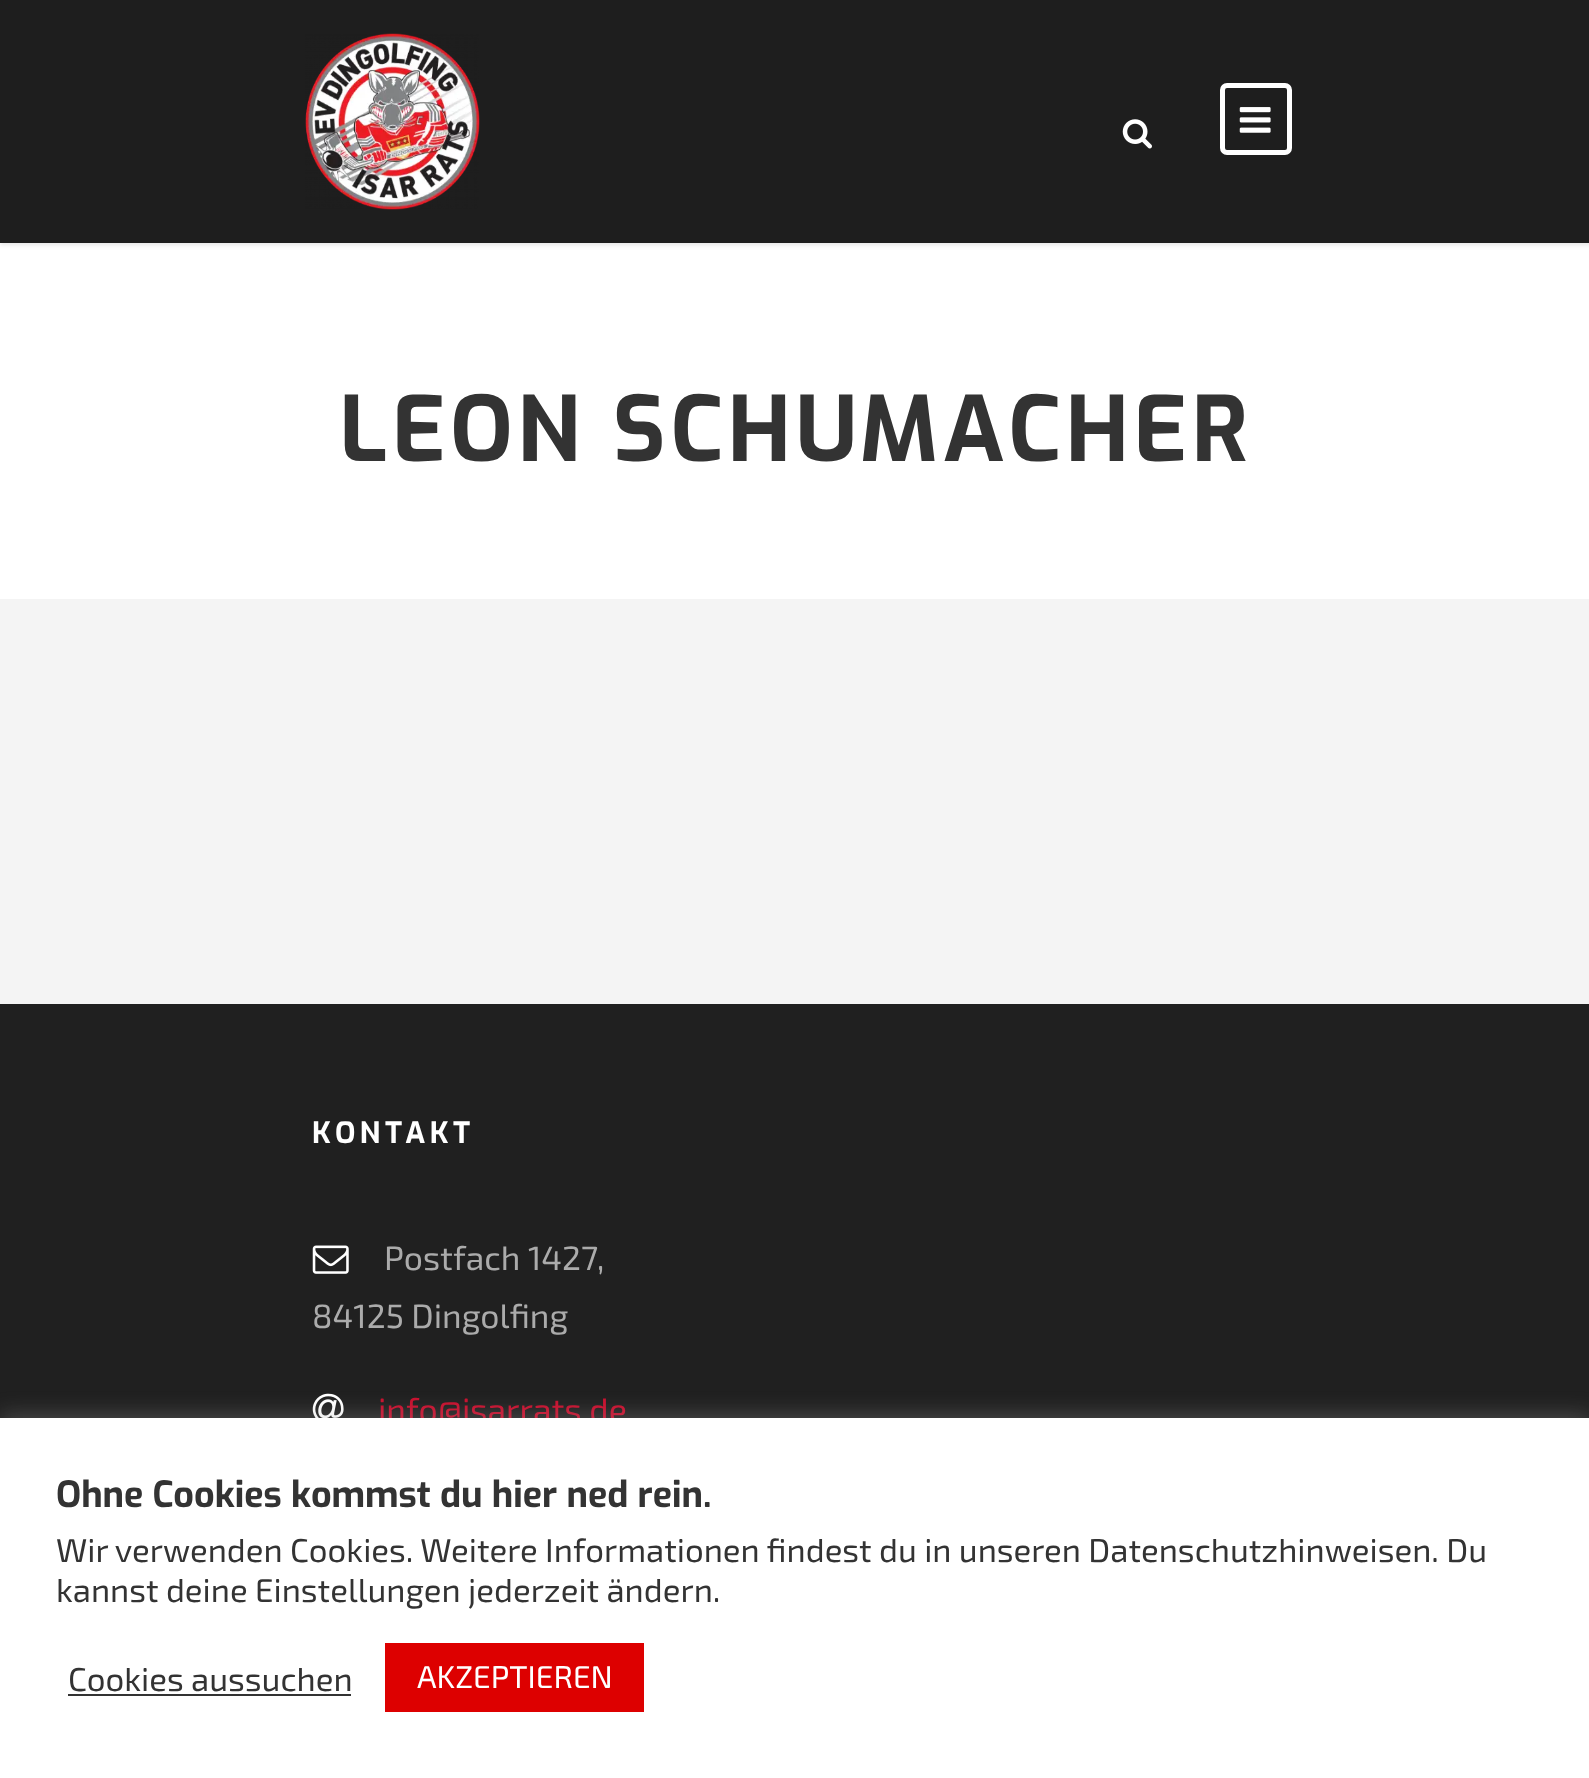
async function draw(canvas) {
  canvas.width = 1589
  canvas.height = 1778
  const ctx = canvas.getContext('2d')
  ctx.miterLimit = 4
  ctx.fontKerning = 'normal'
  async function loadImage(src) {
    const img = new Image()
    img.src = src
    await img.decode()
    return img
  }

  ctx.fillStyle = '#fff'
  ctx.fillRect(0, 0, 1589, 1778)
  ctx.fillStyle = '#0000001a'
  ctx.filter = 'blur(2px)'
  ctx.beginPath()
  ctx.rect(0, 2, 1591, 243)
  ctx.fill()
  ctx.filter = 'none'
  ctx.fillStyle = '#1e1e1e'
  ctx.fillRect(0, 0, 1589, 243)
  ctx.drawImage(await loadImage('image0.png'), 305, 33, 175, 177)
  ctx.drawImage(await loadImage('image1.png'), 1122, 119, 30, 30)
  ctx.beginPath()
  ctx.roundRect(1222.5, 85.5, 67, 67, 4.5)
  ctx.strokeStyle = '#fff'
  ctx.lineWidth = 5
  ctx.stroke()
  ctx.drawImage(await loadImage('image2.png'), 1239, 107, 32, 26)
  ctx.letterSpacing = '4.5px'
  ctx.font = 'bold 90px Exo'
  ctx.fillStyle = '#333'
  ctx.fillText('LEON SCHUMACHER', 339, 461)
  ctx.fillStyle = '#f4f4f4'
  ctx.fillRect(0, 599, 1589, 405)
  ctx.fillStyle = '#202020'
  ctx.fillRect(0, 1004, 1589, 414)
  ctx.font = 'bold 29.25px Exo'
  ctx.fillStyle = '#fff'
  ctx.fillText('KONTAKT', 312, 1143)
  ctx.drawImage(await loadImage('image3.png'), 312, 1245, 37, 29)
  ctx.letterSpacing = '0px'
  ctx.font = '33.75px "Exo 2"'
  ctx.fillStyle = '#ababab'
  ctx.fillText('Postfach 1427,', 384, 1270)
  ctx.fillText('84125 Dingolfing', 312, 1328)
  ctx.drawImage(await loadImage('image4.png'), 312, 1393, 32, 25)
  ctx.fillStyle = '#c8102e'
  ctx.fillText('info@isarrats.de', 378, 1422)
  ctx.fillStyle = '#acabab4d'
  ctx.filter = 'blur(11px)'
  ctx.beginPath()
  ctx.rect(0, 1415, 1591, 363)
  ctx.fill()
  ctx.filter = 'none'
  ctx.fillStyle = '#fff'
  ctx.fillRect(0, 1418, 1589, 360)
  ctx.font = 'bold 36px Exo'
  ctx.fillStyle = '#333'
  ctx.fillText('Ohne Cookies kommst du hier ned rein.', 56, 1507)
  ctx.font = '33px "Exo 2"'
  ctx.fillText('Wir verwenden Cookies. Weitere Informationen findest du in unseren Datenschutzhinweisen. Du', 56, 1562)
  ctx.fillText('kannst deine Einstellungen jederzeit ändern.', 56, 1602)
  ctx.fillText('Cookies aussuchen', 68, 1691)
  ctx.fillRect(68, 1694, 283, 2)
  ctx.fillStyle = '#d00'
  ctx.fillRect(385, 1643, 259, 69)
  ctx.font = '31.5px "Exo 2"'
  ctx.fillStyle = '#fff'
  ctx.fillText('AKZEPTIEREN', 417, 1688)
}

draw(document.querySelector('canvas'))
